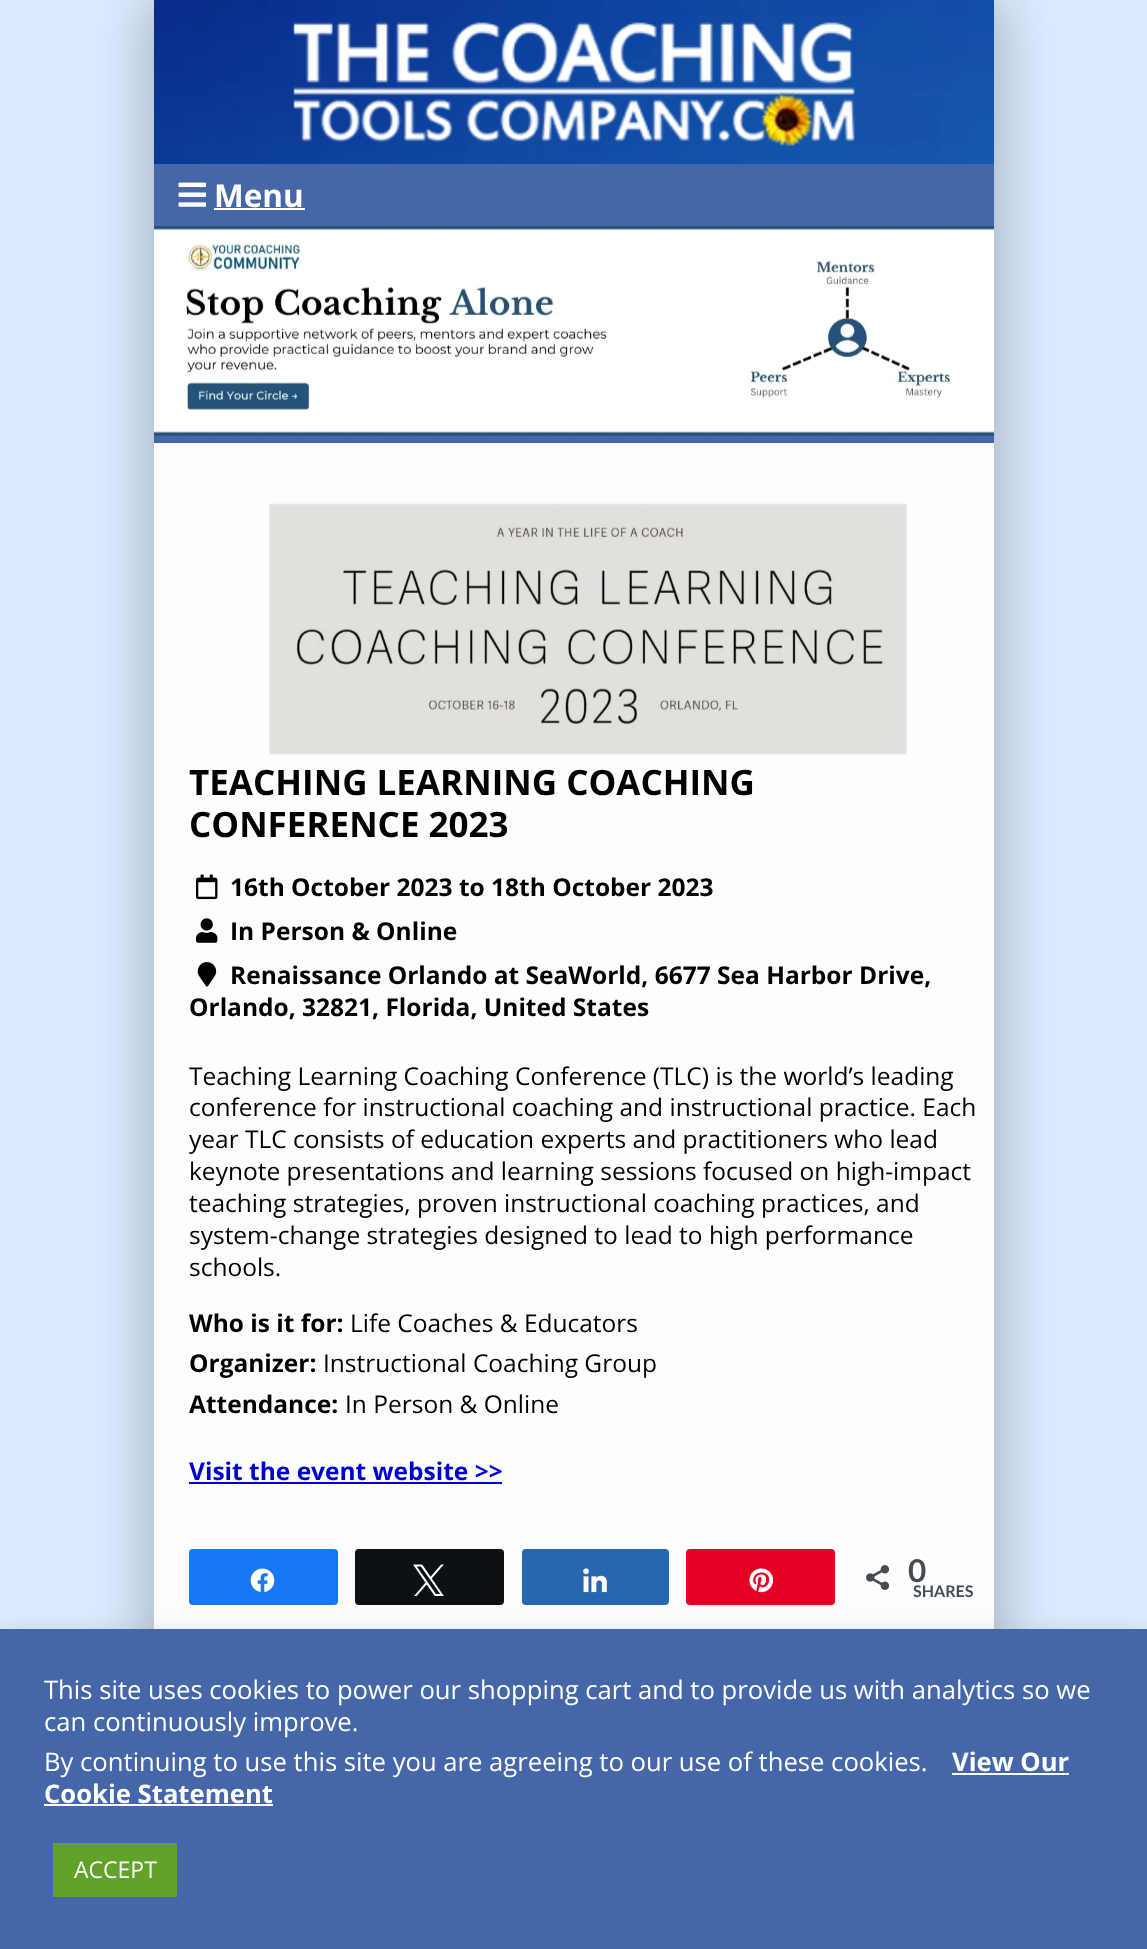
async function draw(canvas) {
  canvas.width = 1147
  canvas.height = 1949
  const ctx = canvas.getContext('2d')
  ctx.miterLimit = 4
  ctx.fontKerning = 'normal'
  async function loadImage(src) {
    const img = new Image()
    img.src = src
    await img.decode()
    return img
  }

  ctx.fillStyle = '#dcebff'
  ctx.fillRect(0, 0, 1147, 1949)
  ctx.fillStyle = '#00000026'
  ctx.filter = 'blur(26px)'
  ctx.beginPath()
  ctx.rect(137, 0, 840, 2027)
  ctx.fill()
  ctx.filter = 'none'
  ctx.filter = 'blur(26px)'
  ctx.beginPath()
  ctx.rect(172, 0, 840, 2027)
  ctx.fill()
  ctx.filter = 'none'
  ctx.fillStyle = '#4567a9'
  ctx.fillRect(154, 164, 840, 279)
  ctx.drawImage(await loadImage('image0.png'), 154, 0, 840, 164)
  ctx.drawImage(await loadImage('image1.png'), 293, 22, 562, 124)
  ctx.drawImage(await loadImage('image2.png'), 178, 182, 29, 25)
  ctx.font = 'bold 31.5px Open Sans'
  ctx.fillStyle = '#fff'
  ctx.fillText('Menu', 214, 207)
  ctx.fillRect(214, 208, 91, 2)
  ctx.drawImage(await loadImage('image3.png'), 154, 226, 840, 210)
  ctx.fillStyle = '#fcfdff'
  ctx.fillRect(154, 443, 840, 1186)
  ctx.drawImage(await loadImage('image4.png'), 269, 503, 638, 252)
  ctx.font = 'bold 35px Open Sans'
  ctx.fillStyle = '#000'
  ctx.fillText('TEACHING LEARNING COACHING', 189, 795)
  ctx.fillText('CONFERENCE 2023', 189, 837)
  ctx.drawImage(await loadImage('image5.png'), 196, 874, 22, 26)
  ctx.font = 'bold 24.5px Open Sans'
  ctx.fillText('16th October 2023 to 18th October 2023', 230, 896)
  ctx.drawImage(await loadImage('image6.png'), 196, 918, 22, 25)
  ctx.fillText('In Person & Online', 230, 940)
  ctx.drawImage(await loadImage('image7.png'), 197, 962, 20, 25)
  ctx.fillText('Renaissance Orlando at SeaWorld, 6677 Sea Harbor Drive,', 230, 984)
  ctx.fillText('Orlando, 32821, Florida, United States', 189, 1016)
  ctx.font = '24.5px Open Sans'
  ctx.fillText('Teaching Learning Coaching Conference (TLC) is the world’s leading', 189, 1085)
  ctx.fillText('conference for instructional coaching and instructional practice. Each', 189, 1116)
  ctx.fillText('year TLC consists of education experts and practitioners who lead', 189, 1148)
  ctx.fillText('keynote presentations and learning sessions focused on high-impact', 189, 1180)
  ctx.fillText('teaching strategies, proven instructional coaching practices, and', 189, 1212)
  ctx.fillText('system-change strategies designed to lead to high performance', 189, 1244)
  ctx.fillText('schools.', 189, 1276)
  ctx.font = 'bold 24.5px Open Sans'
  ctx.fillText('Who is it for:', 189, 1332)
  ctx.font = '24.5px Open Sans'
  ctx.fillText('Life Coaches & Educators', 350, 1332)
  ctx.font = 'bold 24.5px Open Sans'
  ctx.fillText('Organizer:', 189, 1372)
  ctx.font = '24.5px Open Sans'
  ctx.fillText('Instructional Coaching Group', 323, 1372)
  ctx.font = 'bold 24.5px Open Sans'
  ctx.fillText('Attendance:', 189, 1413)
  ctx.font = '24.5px Open Sans'
  ctx.fillText('In Person & Online', 345, 1413)
  ctx.font = 'bold 24.5px Open Sans'
  ctx.fillStyle = '#0000d2'
  ctx.fillText('Visit the event website >>', 189, 1480)
  ctx.fillRect(189, 1482, 313, 2)
  ctx.fillStyle = '#1877f2'
  ctx.beginPath()
  ctx.roundRect(190, 1550, 147, 54, 3)
  ctx.fill()
  ctx.strokeStyle = '#1877f2'
  ctx.lineWidth = 2
  ctx.stroke()
  ctx.drawImage(await loadImage('image8.png'), 250, 1568, 25, 25)
  ctx.fillStyle = '#0d1014'
  ctx.beginPath()
  ctx.roundRect(356, 1550, 147, 54, 3)
  ctx.fill()
  ctx.strokeStyle = '#0d1014'
  ctx.stroke()
  ctx.drawImage(await loadImage('image9.png'), 413, 1564, 31, 32)
  ctx.fillStyle = '#2767b1'
  ctx.beginPath()
  ctx.roundRect(523, 1550, 145, 54, 3)
  ctx.fill()
  ctx.strokeStyle = '#2767b1'
  ctx.stroke()
  ctx.drawImage(await loadImage('image10.png'), 583, 1568, 24, 25)
  ctx.fillStyle = '#e60023'
  ctx.beginPath()
  ctx.roundRect(687, 1550, 147, 54, 3)
  ctx.fill()
  ctx.strokeStyle = '#e60023'
  ctx.stroke()
  ctx.drawImage(await loadImage('image11.png'), 749, 1568, 25, 25)
  ctx.drawImage(await loadImage('image12.png'), 866, 1565, 24, 25)
  ctx.font = 'bold 31.5px Lato'
  ctx.fillStyle = '#474b4d'
  ctx.fillText('0', 908, 1582)
  ctx.font = 'bold 16px Lato'
  ctx.fillText('SHARES', 913, 1597)
  ctx.fillStyle = '#acabab4d'
  ctx.filter = 'blur(9px)'
  ctx.beginPath()
  ctx.rect(0, 1628, 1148, 320)
  ctx.fill()
  ctx.filter = 'none'
  ctx.fillStyle = '#4567a9'
  ctx.fillRect(0, 1629, 1147, 320)
  ctx.font = '25.65px Open Sans'
  ctx.fillStyle = '#fff'
  ctx.fillText('This site uses cookies to power our shopping cart and to provide us with analytics so we', 44, 1699)
  ctx.fillText('can continuously improve.', 44, 1731)
  ctx.fillText('By continuing to use this site you are agreeing to our use of these cookies.', 44, 1771)
  ctx.font = 'bold 25.65px Open Sans'
  ctx.fillText('View Our', 952, 1771)
  ctx.fillStyle = '#fcfcfc'
  ctx.fillRect(952, 1773, 117, 2)
  ctx.fillStyle = '#fff'
  ctx.fillText('Cookie Statement', 44, 1803)
  ctx.fillStyle = '#fcfcfc'
  ctx.fillRect(44, 1804, 229, 2)
  ctx.fillStyle = '#61a229'
  ctx.fillRect(53, 1843, 124, 54)
  ctx.font = '23px Open Sans'
  ctx.fillStyle = '#fff'
  ctx.fillText('ACCEPT', 74, 1878)
}

draw(document.querySelector('canvas'))
